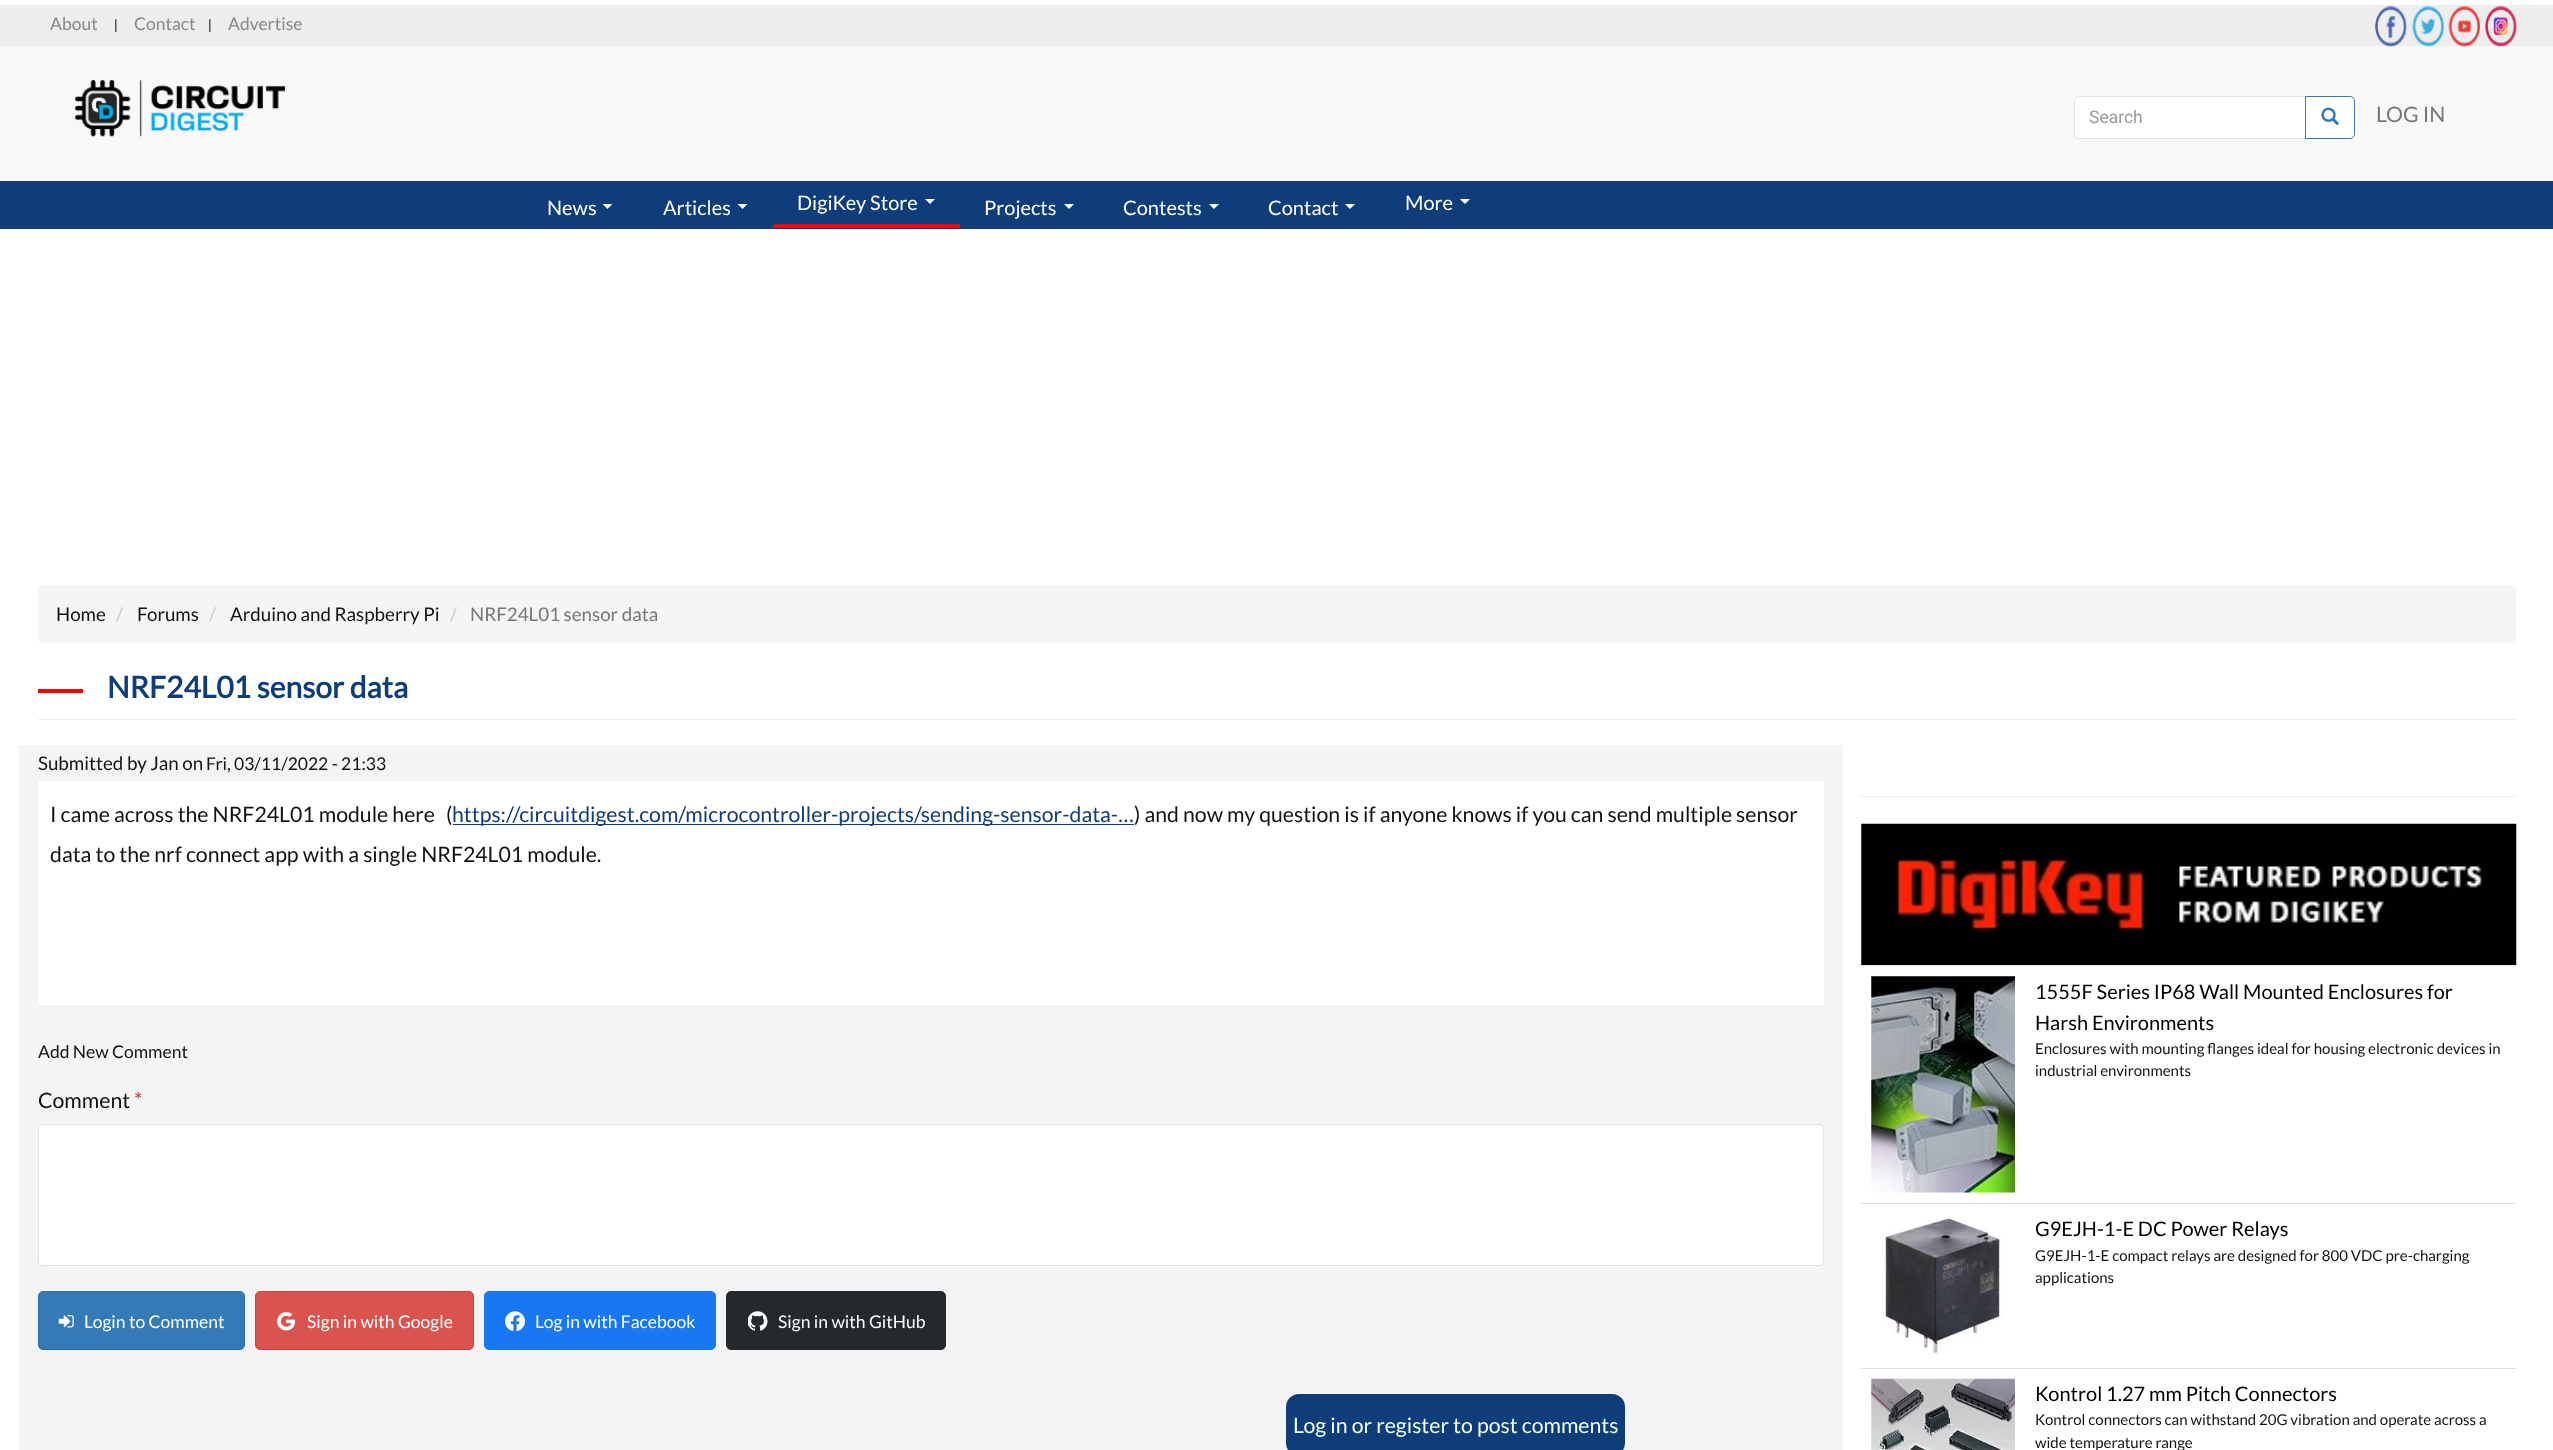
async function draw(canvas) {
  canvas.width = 2553
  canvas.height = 1450
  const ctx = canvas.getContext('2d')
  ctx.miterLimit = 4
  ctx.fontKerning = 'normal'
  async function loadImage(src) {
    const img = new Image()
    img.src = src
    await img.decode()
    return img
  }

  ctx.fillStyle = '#fff'
  ctx.fillRect(0, 0, 2553, 1450)
  ctx.fillStyle = '#f8f8f8'
  ctx.fillRect(0, 46, 2553, 135)
  ctx.fillStyle = '#ededed'
  ctx.fillRect(0, 5, 2553, 41)
  ctx.font = '17.5px Lato'
  ctx.fillStyle = '#878787'
  ctx.fillText('About', 50, 30)
  ctx.font = '15px Roboto'
  ctx.fillStyle = '#121212'
  ctx.fillText('|', 114, 30)
  ctx.font = '17.5px Lato'
  ctx.fillStyle = '#878787'
  ctx.fillText('Contact', 134, 30)
  ctx.font = '15px Roboto'
  ctx.fillStyle = '#121212'
  ctx.fillText('|', 208, 30)
  ctx.font = '17.5px Lato'
  ctx.fillStyle = '#878787'
  ctx.fillText('Advertise', 228, 30)
  ctx.drawImage(await loadImage('image0.png'), 2375, 6, 32, 41)
  ctx.drawImage(await loadImage('image1.png'), 2412, 6, 32, 41)
  ctx.drawImage(await loadImage('image2.png'), 2448, 6, 32, 41)
  ctx.drawImage(await loadImage('image3.png'), 2485, 6, 32, 41)
  ctx.drawImage(await loadImage('image4.png'), 75, 80, 210, 57)
  ctx.fillStyle = '#fff'
  ctx.beginPath()
  ctx.roundRect(2074.5, 96.5, 231, 42, [4.5, 0, 0, 4.5])
  ctx.fill()
  ctx.strokeStyle = '#e2e2e2'
  ctx.stroke()
  ctx.font = '17.5px Roboto'
  ctx.fillStyle = '#999'
  ctx.fillText('Search', 2089, 123)
  ctx.fillStyle = '#fff'
  ctx.beginPath()
  ctx.roundRect(2305.5, 96.5, 49, 42, [0, 4.5, 4.5, 0])
  ctx.fill()
  ctx.strokeStyle = '#337ab7'
  ctx.stroke()
  ctx.drawImage(await loadImage('image5.png'), 2321, 107, 18, 18)
  ctx.font = '21.25px Lato'
  ctx.fillStyle = '#777'
  ctx.fillText('LOG IN', 2376, 122)
  ctx.fillStyle = '#0e3d79'
  ctx.fillRect(0, 181, 2553, 48)
  ctx.font = '20px Lato'
  ctx.fillStyle = '#fff'
  ctx.fillText('News', 547, 215)
  ctx.beginPath()
  ctx.moveTo(602.5, 204)
  ctx.lineTo(612.5, 204)
  ctx.lineTo(607.5, 209)
  ctx.closePath()
  ctx.fill()
  ctx.fillText('Articles', 663, 215)
  ctx.beginPath()
  ctx.moveTo(737.5, 204)
  ctx.lineTo(747.5, 204)
  ctx.lineTo(742.5, 209)
  ctx.closePath()
  ctx.fill()
  ctx.fillStyle = '#f00'
  ctx.fillRect(773, 224, 187, 4)
  ctx.fillStyle = '#fff'
  ctx.fillText('DigiKey Store', 797, 210)
  ctx.beginPath()
  ctx.moveTo(925, 199)
  ctx.lineTo(935, 199)
  ctx.lineTo(930, 204)
  ctx.closePath()
  ctx.fill()
  ctx.fillText('Projects', 984, 215)
  ctx.beginPath()
  ctx.moveTo(1064, 204)
  ctx.lineTo(1074, 204)
  ctx.lineTo(1069, 209)
  ctx.closePath()
  ctx.fill()
  ctx.fillText('Contests', 1123, 215)
  ctx.beginPath()
  ctx.moveTo(1209, 204)
  ctx.lineTo(1219, 204)
  ctx.lineTo(1214, 209)
  ctx.closePath()
  ctx.fill()
  ctx.fillText('Contact', 1268, 215)
  ctx.beginPath()
  ctx.moveTo(1345, 204)
  ctx.lineTo(1355, 204)
  ctx.lineTo(1350, 209)
  ctx.closePath()
  ctx.fill()
  ctx.fillText('More', 1405, 210)
  ctx.beginPath()
  ctx.moveTo(1460, 199)
  ctx.lineTo(1470, 199)
  ctx.lineTo(1465, 204)
  ctx.closePath()
  ctx.fill()
  ctx.fillStyle = '#f5f5f5'
  ctx.beginPath()
  ctx.roundRect(38, 585, 2478, 58, 5)
  ctx.fill()
  ctx.font = '18.75px Lato'
  ctx.fillStyle = '#121212'
  ctx.fillText('Home', 56, 621)
  ctx.fillStyle = '#ccc'
  ctx.fillText('/', 116, 621)
  ctx.fillStyle = '#121212'
  ctx.fillText('Forums', 137, 621)
  ctx.fillStyle = '#ccc'
  ctx.fillText('/', 209, 621)
  ctx.fillStyle = '#121212'
  ctx.fillText('Arduino and Raspberry Pi', 230, 621)
  ctx.fillStyle = '#ccc'
  ctx.fillText('/', 450, 621)
  ctx.fillStyle = '#777'
  ctx.fillText('NRF24L01 sensor data', 470, 621)
  ctx.fillStyle = '#eee'
  ctx.fillRect(38, 719, 2478, 1)
  ctx.fillStyle = '#f00'
  ctx.fillRect(38, 689, 45, 4)
  ctx.font = 'bold 30px Lato'
  ctx.fillStyle = '#0e3d79'
  ctx.fillText('NRF24L01 sensor data', 107, 698)
  ctx.fillStyle = '#f4f4f4'
  ctx.fillRect(19, 745, 1824, 705)
  ctx.font = '18.75px Lato'
  ctx.fillStyle = '#121212'
  ctx.fillText('Submitted by Jan on', 38, 770)
  ctx.font = '17.5px Lato'
  ctx.fillText('Fri, 03/11/2022 - 21:33', 206, 770)
  ctx.fillStyle = '#fff'
  ctx.fillRect(38, 781, 1786, 224)
  ctx.font = '21.25px Lato'
  ctx.fillStyle = '#121212'
  ctx.fillText('I came across the NRF24L01 module here', 50, 822)
  ctx.fillText('(', 446, 822)
  ctx.fillStyle = '#0e3d79'
  ctx.fillRect(453, 824, 681, 1)
  ctx.fillText('https://circuitdigest.com/microcontroller-projects/sending-sensor-data-…', 452, 822)
  ctx.fillStyle = '#121212'
  ctx.fillText(') and now my question is if anyone knows if you can send multiple sensor', 1134, 822)
  ctx.fillText('data to the nrf connect app with a single NRF24L01 module.', 50, 862)
  ctx.font = '17.5px Lato'
  ctx.fillText('Add New Comment', 38, 1058)
  ctx.font = '21.25px Lato'
  ctx.fillText('Comment', 38, 1108)
  ctx.fillStyle = '#a94442'
  ctx.fillText('*', 134, 1108)
  ctx.fillStyle = '#fff'
  ctx.beginPath()
  ctx.roundRect(38.5, 1124.5, 1785, 141, 4.5)
  ctx.fill()
  ctx.strokeStyle = '#e2e2e2'
  ctx.stroke()
  ctx.fillStyle = '#337ab7'
  ctx.beginPath()
  ctx.roundRect(38.5, 1291.5, 206, 58, 4.5)
  ctx.fill()
  ctx.strokeStyle = '#2e6da4'
  ctx.stroke()
  ctx.drawImage(await loadImage('image6.png'), 58, 1315, 16, 13)
  ctx.font = '17.5px Lato'
  ctx.fillStyle = '#fff'
  ctx.fillText('Login to Comment', 84, 1328)
  ctx.fillStyle = '#d9534f'
  ctx.beginPath()
  ctx.roundRect(255.5, 1291.5, 218, 58, 4.5)
  ctx.fill()
  ctx.strokeStyle = '#d43f3a'
  ctx.stroke()
  ctx.drawImage(await loadImage('image7.png'), 277, 1312, 19, 19)
  ctx.fillStyle = '#fff'
  ctx.fillText('Sign in with Google', 307, 1328)
  ctx.fillStyle = '#1877f2'
  ctx.beginPath()
  ctx.roundRect(484.5, 1291.5, 231, 58, 4.5)
  ctx.fill()
  ctx.strokeStyle = '#1877f2'
  ctx.stroke()
  ctx.drawImage(await loadImage('image8.png'), 505, 1311, 20, 20)
  ctx.fillStyle = '#fff'
  ctx.fillText('Log in with Facebook', 535, 1328)
  ctx.fillStyle = '#24292e'
  ctx.beginPath()
  ctx.roundRect(726.5, 1291.5, 219, 58, 4.5)
  ctx.fill()
  ctx.strokeStyle = '#24292e'
  ctx.stroke()
  ctx.drawImage(await loadImage('image9.png'), 748, 1311, 20, 20)
  ctx.fillStyle = '#fff'
  ctx.fillText('Sign in with GitHub', 778, 1328)
  ctx.fillStyle = '#0e3d79'
  ctx.beginPath()
  ctx.roundRect(1286, 1394, 339, 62, 13)
  ctx.fill()
  ctx.font = '21.25px Lato'
  ctx.fillStyle = '#f0fff0'
  ctx.fillText('Log in or register to post comments', 1293, 1433)
  ctx.fillStyle = '#eee'
  ctx.fillRect(1861, 796, 655, 1)
  ctx.drawImage(await loadImage('image10.png'), 1861, 823, 656, 142)
  ctx.drawImage(await loadImage('image11.png'), 1871, 976, 144, 217)
  ctx.fillStyle = '#ddd'
  ctx.fillRect(1861, 965, 655, 1)
  ctx.font = '20px Lato'
  ctx.fillStyle = '#000'
  ctx.fillText('1555F Series IP68 Wall Mounted Enclosures for', 2035, 999)
  ctx.fillText('Harsh Environments', 2035, 1030)
  ctx.font = '15px Lato'
  ctx.fillStyle = '#121212'
  ctx.fillText('Enclosures with mounting flanges ideal for housing electronic devices in', 2035, 1054)
  ctx.fillText('industrial environments', 2035, 1076)
  ctx.drawImage(await loadImage('image12.png'), 1883, 1217, 121, 138)
  ctx.fillStyle = '#ddd'
  ctx.fillRect(1861, 1203, 655, 1)
  ctx.font = '20px Lato'
  ctx.fillStyle = '#000'
  ctx.fillText('G9EJH-1-E DC Power Relays', 2035, 1236)
  ctx.font = '15px Lato'
  ctx.fillStyle = '#121212'
  ctx.fillText('G9EJH-1-E compact relays are designed for 800 VDC pre-charging', 2035, 1261)
  ctx.fillText('applications', 2035, 1283)
  ctx.drawImage(await loadImage('image13.png'), 1871, 1378, 144, 72)
  ctx.fillStyle = '#ddd'
  ctx.fillRect(1861, 1368, 655, 1)
  ctx.font = '20px Lato'
  ctx.fillStyle = '#000'
  ctx.fillText('Kontrol 1.27 mm Pitch Connectors', 2035, 1401)
  ctx.font = '15px Lato'
  ctx.fillStyle = '#121212'
  ctx.fillText('Kontrol connectors can withstand 20G vibration and operate across a', 2035, 1425)
  ctx.fillText('wide temperature range', 2035, 1448)
}

draw(document.querySelector('canvas'))
